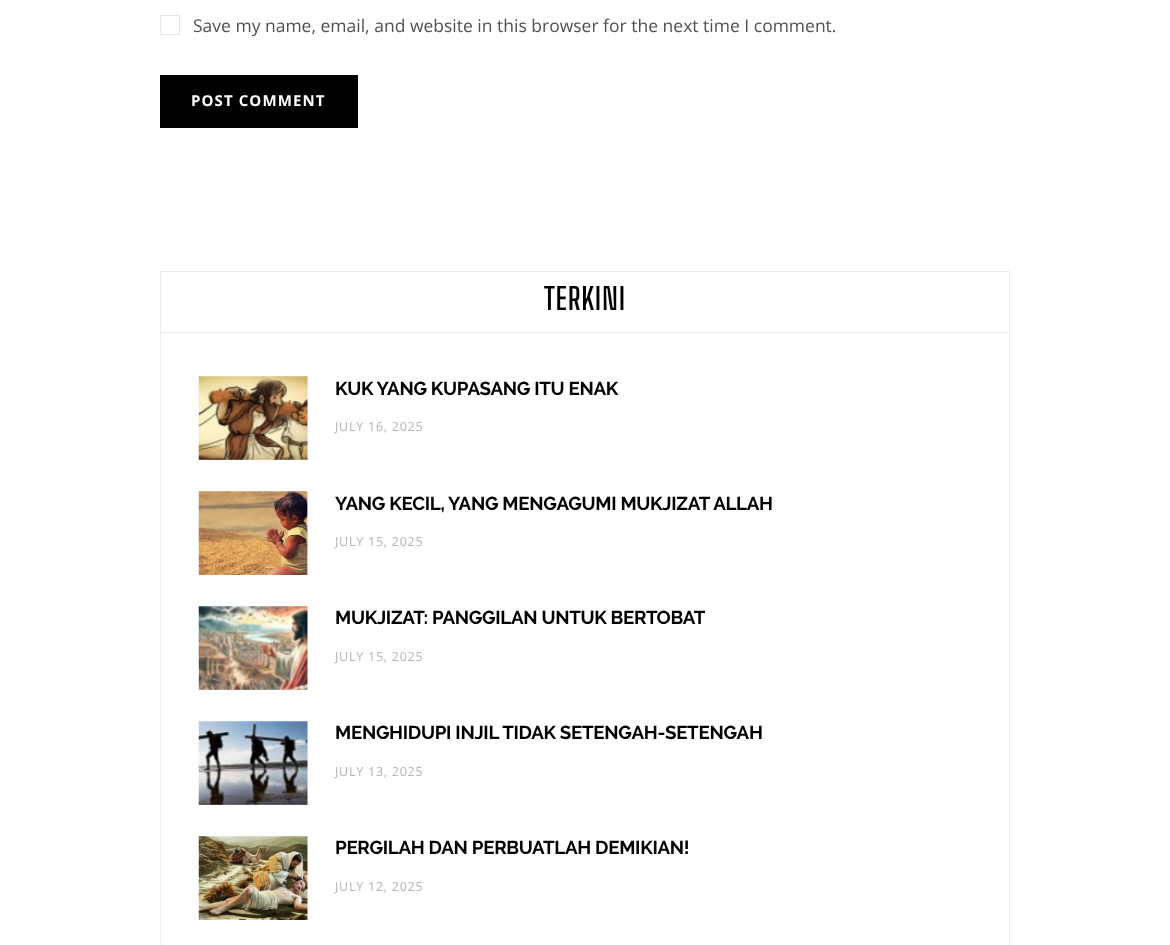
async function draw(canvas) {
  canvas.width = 1170
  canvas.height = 945
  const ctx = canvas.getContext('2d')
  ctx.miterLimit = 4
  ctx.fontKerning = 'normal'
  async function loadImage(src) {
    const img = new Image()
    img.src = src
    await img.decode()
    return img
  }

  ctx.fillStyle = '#fff'
  ctx.fillRect(0, 0, 1170, 945)
  ctx.strokeStyle = '#e5e5e5'
  ctx.strokeRect(160.5, 15.5, 19, 19)
  ctx.font = '17.5px Open Sans'
  ctx.fillStyle = '#505050'
  ctx.fillText('Save my name, email, and website in this browser for the next time I comment.', 193, 32)
  ctx.fillStyle = '#000'
  ctx.fillRect(160, 75, 198, 53)
  ctx.letterSpacing = '1.1px'
  ctx.font = 'bold 15px Open Sans'
  ctx.fillStyle = '#fff'
  ctx.fillText('POST COMMENT', 191, 106)
  ctx.strokeStyle = '#efefef'
  ctx.strokeRect(160.5, 271.5, 849, 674)
  ctx.strokeStyle = '#ebebeb'
  ctx.strokeRect(160.5, 271.5, 849, 61)
  ctx.letterSpacing = '0.75px'
  ctx.font = '600 30px Big Shoulders Text'
  ctx.fillStyle = '#000'
  ctx.fillText('TERKINI', 544, 310)
  ctx.drawImage(await loadImage('image0.png'), 198, 376, 110, 84)
  ctx.letterSpacing = '-0.3px'
  ctx.font = 'bold 18.75px Raleway'
  ctx.fillText('KUK YANG KUPASANG ITU ENAK', 335, 395)
  ctx.letterSpacing = '0.75px'
  ctx.font = '12.5px Open Sans'
  ctx.fillStyle = '#b4b4b4'
  ctx.fillText('JULY 16, 2025', 335, 431)
  ctx.drawImage(await loadImage('image1.png'), 198, 491, 110, 84)
  ctx.letterSpacing = '-0.3px'
  ctx.font = 'bold 18.75px Raleway'
  ctx.fillStyle = '#000'
  ctx.fillText('YANG KECIL, YANG MENGAGUMI MUKJIZAT ALLAH', 335, 510)
  ctx.letterSpacing = '0.75px'
  ctx.font = '12.5px Open Sans'
  ctx.fillStyle = '#b4b4b4'
  ctx.fillText('JULY 15, 2025', 335, 546)
  ctx.drawImage(await loadImage('image2.png'), 198, 606, 110, 84)
  ctx.save()
  ctx.beginPath()
  ctx.rect(335, 609, 370, 81)
  ctx.clip()
  ctx.letterSpacing = '-0.3px'
  ctx.font = 'bold 18.75px Raleway'
  ctx.fillStyle = '#000'
  ctx.fillText('MUKJIZAT: PANGGILAN UNTUK BERTOBAT', 335, 624)
  ctx.restore()
  ctx.fillText('JULY 15, 2025', 335, 661)
  ctx.drawImage(await loadImage('image3.png'), 198, 721, 110, 84)
  ctx.letterSpacing = '-0.3px'
  ctx.font = 'bold 18.75px Raleway'
  ctx.fillStyle = '#000'
  ctx.fillText('MENGHIDUPI INJIL TIDAK SETENGAH-SETENGAH', 335, 739)
  ctx.letterSpacing = '0.75px'
  ctx.font = '12.5px Open Sans'
  ctx.fillStyle = '#b4b4b4'
  ctx.fillText('JULY 13, 2025', 335, 776)
  ctx.drawImage(await loadImage('image4.png'), 198, 836, 110, 84)
  ctx.letterSpacing = '-0.3px'
  ctx.font = 'bold 18.75px Raleway'
  ctx.fillStyle = '#000'
  ctx.fillText('PERGILAH DAN PERBUATLAH DEMIKIAN!', 335, 854)
  ctx.letterSpacing = '0.75px'
  ctx.font = '12.5px Open Sans'
  ctx.fillStyle = '#b4b4b4'
  ctx.fillText('JULY 12, 2025', 335, 891)
}

draw(document.querySelector('canvas'))
